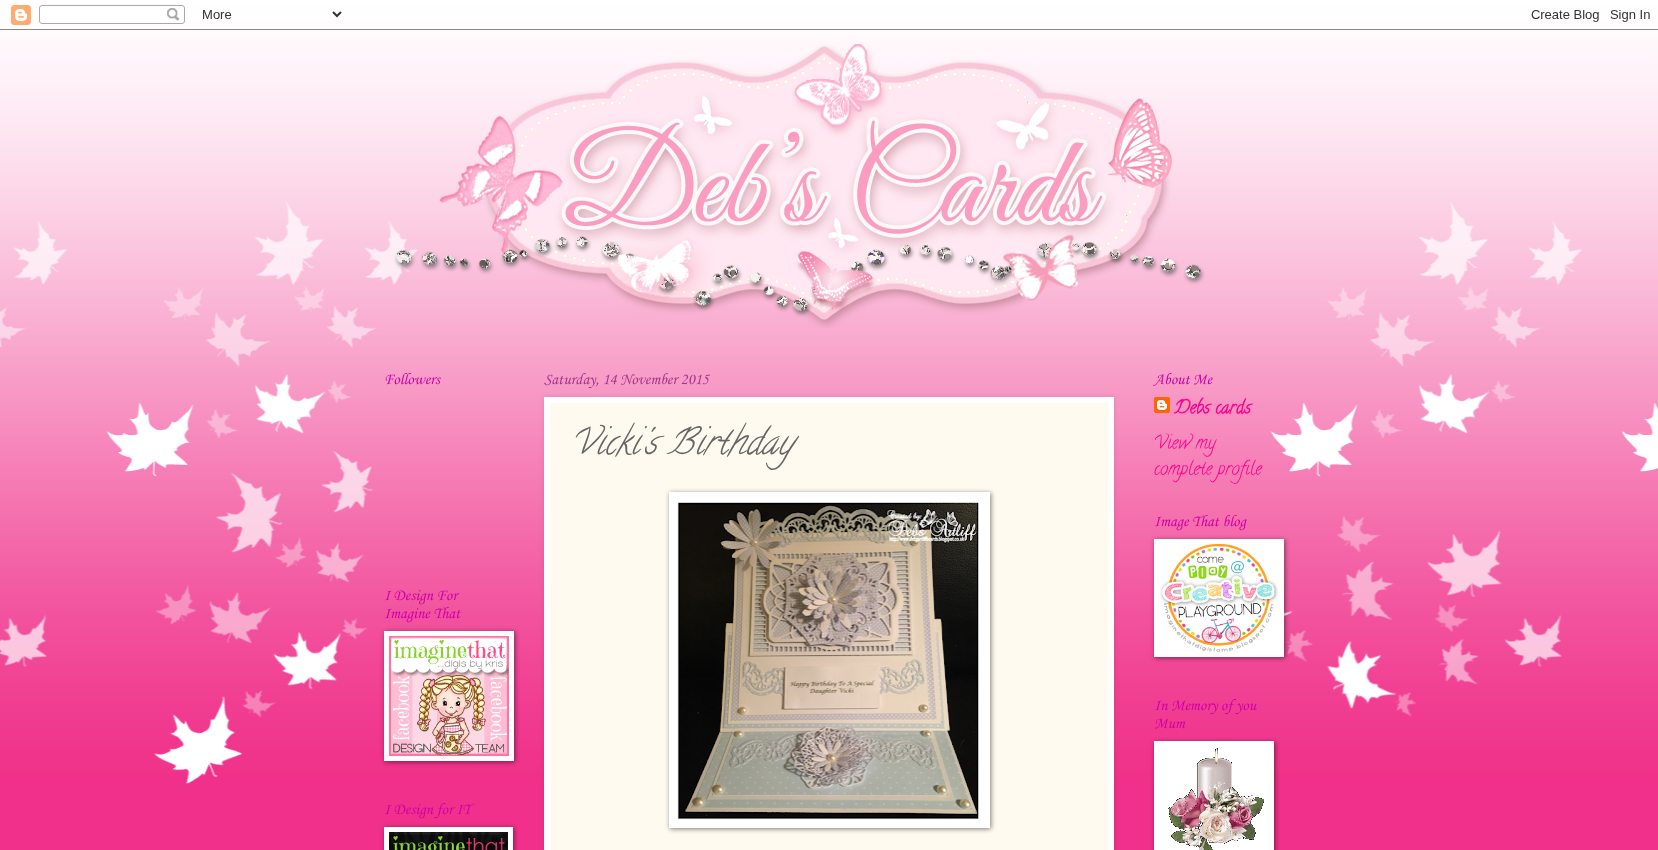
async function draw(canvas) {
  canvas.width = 1658
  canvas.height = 850
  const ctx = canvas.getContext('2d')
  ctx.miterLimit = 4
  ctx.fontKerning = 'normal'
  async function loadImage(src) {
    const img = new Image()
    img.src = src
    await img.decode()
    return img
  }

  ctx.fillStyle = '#f0308a'
  ctx.fillRect(0, 0, 1658, 850)
  ctx.drawImage(await loadImage('image0.png'), 0, 0, 1658, 784)
  ctx.drawImage(await loadImage('image1.png'), 0, 5, 1658, 25)
  ctx.drawImage(await loadImage('image2.png'), 394, 43, 811, 285)
  ctx.font = '16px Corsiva'
  ctx.fillStyle = '#cd00a7'
  ctx.fillText('Followers', 384, 384)
  ctx.fillText('I Design For', 384, 600)
  ctx.fillText('Imagine That', 384, 618)
  ctx.fillStyle = '#00000080'
  ctx.filter = 'blur(2.5px)'
  ctx.beginPath()
  ctx.rect(385, 632, 130, 130)
  ctx.fill()
  ctx.filter = 'none'
  ctx.fillStyle = '#fff'
  ctx.fillRect(384, 631, 130, 130)
  ctx.drawImage(await loadImage('image3.png'), 389, 636, 120, 120)
  ctx.fillStyle = '#cd00a7'
  ctx.fillText('I Design for IT', 384, 814)
  ctx.fillStyle = '#00000080'
  ctx.filter = 'blur(2.5px)'
  ctx.beginPath()
  ctx.rect(385, 828, 129, 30)
  ctx.fill()
  ctx.filter = 'none'
  ctx.fillStyle = '#fff'
  ctx.fillRect(384, 827, 129, 23)
  ctx.drawImage(await loadImage('image4.png'), 389, 832, 119, 18)
  ctx.fillStyle = '#0000001a'
  ctx.filter = 'blur(2.5px)'
  ctx.beginPath()
  ctx.rect(544, 397, 570, 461)
  ctx.fill()
  ctx.filter = 'none'
  ctx.fillStyle = '#a1358e'
  ctx.fillText('Saturday, 14 November 2015', 544, 384)
  ctx.fillStyle = '#fffaef'
  ctx.beginPath()
  ctx.rect(547, 400, 564, 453)
  ctx.fill()
  ctx.strokeStyle = '#fff'
  ctx.lineWidth = 6
  ctx.stroke()
  ctx.font = 'italic 36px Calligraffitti'
  ctx.fillStyle = '#666'
  ctx.fillText('Vicki\'s Birthday', 570, 453)
  ctx.fillStyle = '#00000080'
  ctx.filter = 'blur(2.5px)'
  ctx.beginPath()
  ctx.rect(670, 493, 321, 336)
  ctx.fill()
  ctx.filter = 'none'
  ctx.fillStyle = '#fff'
  ctx.fillRect(669, 492, 321, 336)
  ctx.drawImage(await loadImage('image5.png'), 677, 502, 302, 318)
  ctx.font = '16px Corsiva'
  ctx.fillStyle = '#cd00a7'
  ctx.fillText('About Me', 1154, 384)
  ctx.drawImage(await loadImage('image6.png'), 1154, 397, 16, 16)
  ctx.font = 'bold 18.5px Calligraffitti'
  ctx.fillStyle = '#fc008e'
  ctx.fillText('Debs cards', 1174, 413)
  ctx.font = '18.5px Calligraffitti'
  ctx.fillText('View my', 1154, 448)
  ctx.fillText('complete profile', 1154, 474)
  ctx.font = '16px Corsiva'
  ctx.fillStyle = '#cd00a7'
  ctx.fillText('Image That blog', 1154, 526)
  ctx.fillStyle = '#00000080'
  ctx.filter = 'blur(2.5px)'
  ctx.beginPath()
  ctx.rect(1155, 540, 130, 118)
  ctx.fill()
  ctx.filter = 'none'
  ctx.fillStyle = '#fff'
  ctx.fillRect(1154, 539, 130, 118)
  ctx.drawImage(await loadImage('image7.png'), 1160, 544, 118, 108)
  ctx.fillStyle = '#cd00a7'
  ctx.fillText('In Memory of you', 1154, 710)
  ctx.fillText('Mum', 1154, 728)
  ctx.fillStyle = '#00000080'
  ctx.filter = 'blur(2.5px)'
  ctx.beginPath()
  ctx.rect(1155, 742, 120, 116)
  ctx.fill()
  ctx.filter = 'none'
  ctx.fillStyle = '#fff'
  ctx.fillRect(1154, 741, 120, 109)
  ctx.drawImage(await loadImage('image8.png'), 1168, 748, 96, 102)
}

draw(document.querySelector('canvas'))
